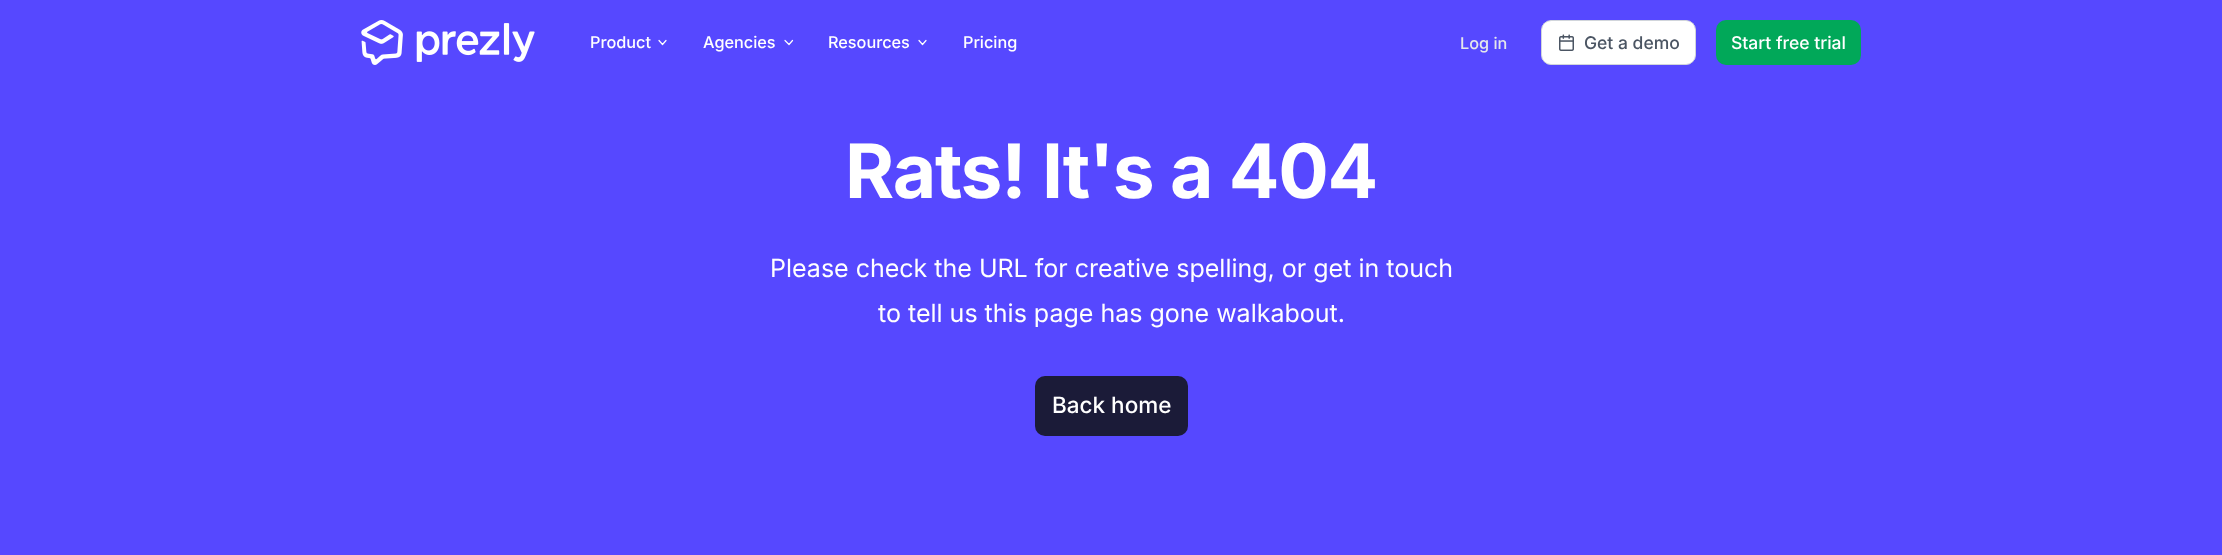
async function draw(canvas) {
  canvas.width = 2222
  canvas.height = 555
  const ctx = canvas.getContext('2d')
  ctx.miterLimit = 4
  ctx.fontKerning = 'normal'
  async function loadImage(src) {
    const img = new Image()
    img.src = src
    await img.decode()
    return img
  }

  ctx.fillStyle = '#5648ff'
  ctx.fillRect(0, 0, 2222, 555)
  ctx.drawImage(await loadImage('image0.png'), 361, 20, 174, 45)
  ctx.font = '500 16.25px Inter'
  ctx.fillStyle = '#fff'
  ctx.fillText('Product', 590, 48)
  ctx.beginPath()
  ctx.moveTo(659, 40.5)
  ctx.lineTo(662.5, 44.5)
  ctx.lineTo(666, 40.5)
  ctx.strokeStyle = '#fff'
  ctx.lineWidth = 1.2
  ctx.lineCap = 'round'
  ctx.lineJoin = 'round'
  ctx.stroke()
  ctx.fillText('Agencies', 703, 48)
  ctx.beginPath()
  ctx.moveTo(785, 40.5)
  ctx.lineTo(789, 44.5)
  ctx.lineTo(792.5, 40.5)
  ctx.stroke()
  ctx.fillText('Resources', 828, 48)
  ctx.beginPath()
  ctx.moveTo(919, 40.5)
  ctx.lineTo(922.5, 44.5)
  ctx.lineTo(926, 40.5)
  ctx.stroke()
  ctx.fillText('Pricing', 963, 48)
  ctx.fillStyle = '#e5e7eb'
  ctx.fillText('Log in', 1460, 49)
  ctx.fillStyle = '#fff'
  ctx.beginPath()
  ctx.roundRect(1541.5, 20.5, 154, 44, 9.5)
  ctx.fill()
  ctx.strokeStyle = '#d1d5db'
  ctx.lineWidth = 1
  ctx.lineJoin = 'miter'
  ctx.stroke()
  ctx.drawImage(await loadImage('image1.png'), 1559, 34, 15, 17)
  ctx.font = '500 17.5px Inter'
  ctx.fillStyle = '#4b5563'
  ctx.fillText('Get a demo', 1584, 49)
  ctx.fillStyle = '#01a859'
  ctx.beginPath()
  ctx.roundRect(1716, 20, 145, 45, 10)
  ctx.fill()
  ctx.fillStyle = '#fff'
  ctx.fillText('Start free trial', 1731, 49)
  ctx.letterSpacing = '-1.25px'
  ctx.font = 'bold 75px Inter'
  ctx.fillText('Rats! It\'s a 404', 845, 198)
  ctx.letterSpacing = '0px'
  ctx.font = '25px Inter'
  ctx.fillText('Please check the URL for creative spelling, or get in touch', 770, 277)
  ctx.fillText('to tell us this page has gone walkabout.', 878, 322)
  ctx.fillStyle = '#1b1b38'
  ctx.beginPath()
  ctx.roundRect(1035, 376, 153, 60, 10)
  ctx.fill()
  ctx.font = '500 22.5px Inter'
  ctx.fillStyle = '#fff'
  ctx.fillText('Back home', 1052, 413)
}

draw(document.querySelector('canvas'))
